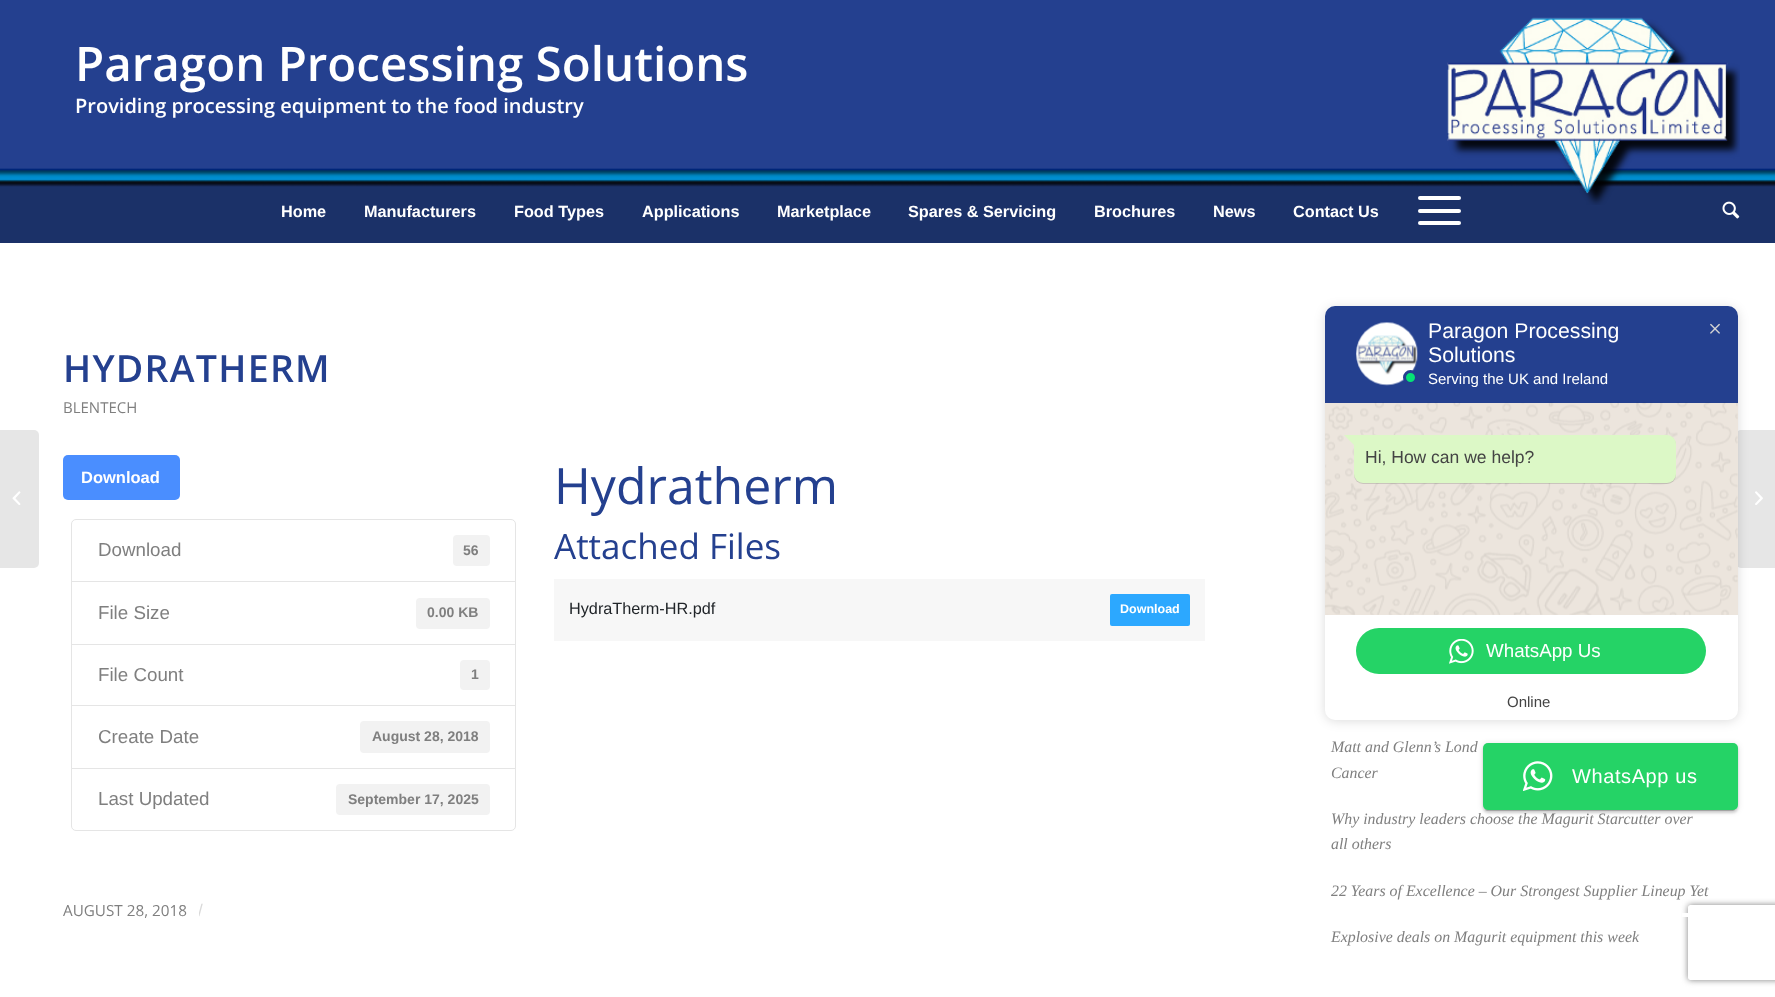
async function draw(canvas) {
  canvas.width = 1775
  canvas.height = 997
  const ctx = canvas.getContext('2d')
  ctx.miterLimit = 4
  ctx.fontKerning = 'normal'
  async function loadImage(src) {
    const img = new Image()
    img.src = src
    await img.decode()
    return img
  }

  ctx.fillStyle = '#fff'
  ctx.fillRect(0, 0, 1775, 997)
  ctx.fillStyle = '#24408f'
  ctx.fillRect(0, 0, 1775, 168)
  ctx.font = '600 47.5px Open Sans'
  ctx.fillStyle = '#fff'
  ctx.fillText('Paragon Processing Solutions', 75, 81)
  ctx.font = '600 20px Open Sans'
  ctx.fillText('Providing processing equipment to the food industry', 75, 113)
  ctx.fillStyle = '#1b3168'
  ctx.fillRect(0, 180, 1775, 63)
  ctx.drawImage(await loadImage('image1.png'), 0, 168, 1775, 19)
  ctx.fillStyle = '#fff'
  ctx.beginPath()
  ctx.roundRect(1418, 196, 43, 4, 2)
  ctx.fill()
  ctx.drawImage(await loadImage('image2.png'), 1722, 201, 18, 18)
  ctx.drawImage(await loadImage('image0.png'), 1447, 17, 293, 188)
  ctx.font = 'bold 16.25px Liberation Sans'
  ctx.fillText('Home', 281, 217)
  ctx.fillText('Manufacturers', 364, 217)
  ctx.fillText('Food Types', 514, 217)
  ctx.fillText('Applications', 642, 217)
  ctx.fillText('Marketplace', 777, 217)
  ctx.fillText('Spares & Servicing', 908, 217)
  ctx.fillText('Brochures', 1094, 217)
  ctx.fillText('News', 1213, 217)
  ctx.fillText('Contact Us', 1293, 217)
  ctx.beginPath()
  ctx.roundRect(1418, 209, 43, 4, 2)
  ctx.fill()
  ctx.beginPath()
  ctx.roundRect(1418, 221, 43, 4, 2)
  ctx.fill()
  ctx.fillStyle = '#e6e6e6'
  ctx.beginPath()
  ctx.roundRect(0, 430, 39, 138, [0, 5, 5, 0])
  ctx.fill()
  ctx.drawImage(await loadImage('image3.png'), 12, 491, 9, 14)
  ctx.letterSpacing = '1.25px'
  ctx.font = '600 37.5px Open Sans'
  ctx.fillStyle = '#24408f'
  ctx.fillText('HYDRATHERM', 63, 382)
  ctx.letterSpacing = '0px'
  ctx.font = '15px Open Sans'
  ctx.fillStyle = '#7f7f7f'
  ctx.fillText('BLENTECH', 63, 413)
  ctx.fillStyle = '#4a8eff'
  ctx.beginPath()
  ctx.roundRect(63, 455, 117, 45, 5)
  ctx.fill()
  ctx.font = 'bold 16.5px Liberation Sans'
  ctx.fillStyle = '#fff'
  ctx.fillText('Download', 81, 483)
  ctx.beginPath()
  ctx.roundRect(71.5, 519.5, 444, 63, [4.5, 4.5, 0, 0])
  ctx.strokeStyle = '#e5e5e5'
  ctx.stroke()
  ctx.font = '18.75px Liberation Sans'
  ctx.fillStyle = '#7f7f7f'
  ctx.fillText('Download', 98, 556)
  ctx.fillStyle = '#f2f2f2'
  ctx.beginPath()
  ctx.roundRect(453, 535, 37, 31, 4)
  ctx.fill()
  ctx.font = 'bold 14px Liberation Sans'
  ctx.fillStyle = '#7f7f7f'
  ctx.fillText('56', 463, 555)
  ctx.fillStyle = '#fff'
  ctx.fillRect(72, 582, 443, 1)
  ctx.strokeRect(71.5, 581.5, 444, 63)
  ctx.font = '18.75px Liberation Sans'
  ctx.fillStyle = '#7f7f7f'
  ctx.fillText('File Size', 98, 619)
  ctx.fillStyle = '#f2f2f2'
  ctx.beginPath()
  ctx.roundRect(416, 598, 74, 31, 4)
  ctx.fill()
  ctx.font = 'bold 14px Liberation Sans'
  ctx.fillStyle = '#7f7f7f'
  ctx.fillText('0.00 KB', 427, 617)
  ctx.strokeRect(71.5, 644.5, 444, 61)
  ctx.font = '18.75px Liberation Sans'
  ctx.fillText('File Count', 98, 681)
  ctx.fillStyle = '#f2f2f2'
  ctx.beginPath()
  ctx.roundRect(460, 660, 30, 30, 4)
  ctx.fill()
  ctx.font = 'bold 14px Liberation Sans'
  ctx.fillStyle = '#7f7f7f'
  ctx.fillText('1', 471, 679)
  ctx.strokeRect(71.5, 705.5, 444, 63)
  ctx.font = '18.75px Liberation Sans'
  ctx.fillText('Create Date', 98, 743)
  ctx.fillStyle = '#f2f2f2'
  ctx.beginPath()
  ctx.roundRect(360, 721, 130, 32, 4)
  ctx.fill()
  ctx.font = 'bold 14px Liberation Sans'
  ctx.fillStyle = '#7f7f7f'
  ctx.fillText('August 28, 2018', 372, 741)
  ctx.fillStyle = '#fff'
  ctx.beginPath()
  ctx.roundRect(71.5, 768.5, 444, 62, [0, 0, 4.5, 4.5])
  ctx.fill()
  ctx.stroke()
  ctx.font = '18.75px Liberation Sans'
  ctx.fillStyle = '#7f7f7f'
  ctx.fillText('Last Updated', 98, 805)
  ctx.fillStyle = '#f2f2f2'
  ctx.beginPath()
  ctx.roundRect(336, 784, 154, 31, 4)
  ctx.fill()
  ctx.font = 'bold 14px Liberation Sans'
  ctx.fillStyle = '#7f7f7f'
  ctx.fillText('September 17, 2025', 348, 804)
  ctx.font = '50px Open Sans'
  ctx.fillStyle = '#24408f'
  ctx.fillText('Hydratherm', 554, 504)
  ctx.font = '35px Open Sans'
  ctx.fillText('Attached Files', 554, 559)
  ctx.fillStyle = '#f7f7f7'
  ctx.fillRect(554, 579, 651, 62)
  ctx.font = '16.25px Liberation Sans'
  ctx.fillStyle = '#212529'
  ctx.fillText('HydraTherm-HR.pdf', 569, 614)
  ctx.fillStyle = '#2ca8ff'
  ctx.beginPath()
  ctx.roundRect(1110, 594, 80, 32, 2)
  ctx.fill()
  ctx.font = 'bold 12.5px Liberation Sans'
  ctx.fillStyle = '#fff'
  ctx.fillText('Download', 1120, 613)
  ctx.font = '15.25px Open Sans'
  ctx.fillStyle = '#7f7f7f'
  ctx.fillText('AUGUST 28, 2018', 63, 916)
  ctx.save()
  ctx.beginPath()
  ctx.rect(199, 896, 4, 32)
  ctx.clip()
  ctx.font = '17px Liberation Sans'
  ctx.fillStyle = '#d9d9d9'
  ctx.fillText('/', 198, 916)
  ctx.restore()
  ctx.font = 'italic 15.9px Liberation Serif'
  ctx.fillText('Matt and Glenn’s Lond', 1331, 752)
  ctx.fillText('Cancer', 1331, 778)
  ctx.fillText('Why industry leaders choose the Magurit Starcutter over', 1331, 824)
  ctx.fillText('all others', 1331, 849)
  ctx.save()
  ctx.beginPath()
  ctx.moveTo(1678, 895)
  ctx.lineTo(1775, 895)
  ctx.lineTo(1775, 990)
  ctx.lineTo(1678, 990)
  ctx.closePath()
  ctx.moveTo(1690.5, 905)
  ctx.lineTo(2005.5, 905)
  ctx.bezierCurveTo(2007, 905, 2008, 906, 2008, 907.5)
  ctx.lineTo(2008, 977.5)
  ctx.bezierCurveTo(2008, 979, 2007, 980, 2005.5, 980)
  ctx.lineTo(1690.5, 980)
  ctx.bezierCurveTo(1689, 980, 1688, 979, 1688, 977.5)
  ctx.lineTo(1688, 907.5)
  ctx.bezierCurveTo(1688, 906, 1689, 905, 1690.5, 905)
  ctx.closePath()
  ctx.clip('evenodd')
  ctx.fillStyle = '#808080'
  ctx.filter = 'blur(3px)'
  ctx.beginPath()
  ctx.roundRect(1688, 905, 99, 75, 2.5)
  ctx.fill()
  ctx.filter = 'none'
  ctx.restore()
  ctx.fillText('22 Years of Excellence – Our Strongest Supplier Lineup Yet', 1331, 896)
  ctx.fillStyle = '#fff'
  ctx.fillRect(1682, 913, 6, 4)
  ctx.fillStyle = '#7f7f7f'
  ctx.fillText('Explosive deals on Magurit equipment this week', 1331, 942)
  ctx.fillStyle = '#e6e6e6'
  ctx.beginPath()
  ctx.roundRect(1736, 430, 39, 138, [5, 0, 0, 5])
  ctx.fill()
  ctx.drawImage(await loadImage('image4.png'), 1755, 491, 8, 14)
  ctx.fillStyle = '#00000024'
  ctx.filter = 'blur(5.5px)'
  ctx.beginPath()
  ctx.roundRect(1325, 308, 413, 413, 10)
  ctx.fill()
  ctx.filter = 'none'
  ctx.fillStyle = '#24408f'
  ctx.beginPath()
  ctx.roundRect(1325, 306, 413, 97, [10, 10, 0, 0])
  ctx.fill()
  ctx.drawImage(await loadImage('image5.png'), 1356, 322, 62, 64)
  ctx.fillStyle = '#06e376'
  ctx.beginPath()
  ctx.arc(1410.5, 377.5, 6, 0, 2 * Math.PI)
  ctx.fill()
  ctx.strokeStyle = '#24408f'
  ctx.lineWidth = 3
  ctx.stroke()
  ctx.font = '21.25px Liberation Sans'
  ctx.fillStyle = '#fff'
  ctx.fillText('Paragon Processing', 1428, 338)
  ctx.fillText('Solutions', 1428, 362)
  ctx.font = '15px Liberation Sans'
  ctx.fillText('Serving the UK and Ireland', 1428, 384)
  ctx.fillStyle = '#ece5dd'
  ctx.fillRect(1325, 403, 413, 212)
  ctx.drawImage(await loadImage('image6.png'), 1325, 402, 413, 213)
  ctx.fillStyle = '#00000024'
  ctx.filter = 'blur(0.5px)'
  ctx.beginPath()
  ctx.roundRect(1354, 436, 322, 48, 9)
  ctx.fill()
  ctx.filter = 'none'
  ctx.fillStyle = '#dcf8c6'
  ctx.beginPath()
  ctx.roundRect(1354, 435, 322, 48, [0, 9, 9, 9])
  ctx.fill()
  ctx.beginPath()
  ctx.moveTo(1354.5, 435)
  ctx.lineTo(1354.5, 445.5)
  ctx.lineTo(1344, 435)
  ctx.closePath()
  ctx.fill()
  ctx.font = '17.5px Liberation Sans'
  ctx.fillStyle = '#444'
  ctx.fillText('Hi, How can we help?', 1365, 463)
  ctx.fillStyle = '#fff'
  ctx.fillRect(1325, 615, 413, 69)
  ctx.fillStyle = '#25d366'
  ctx.beginPath()
  ctx.roundRect(1356, 628, 350, 46, 23)
  ctx.fill()
  ctx.drawImage(await loadImage('image7.png'), 1449, 639, 25, 25)
  ctx.font = '18.75px Liberation Sans'
  ctx.fillStyle = '#fff'
  ctx.fillText('WhatsApp Us', 1486, 657)
  ctx.beginPath()
  ctx.roundRect(1325, 684, 413, 36, [0, 0, 10, 10])
  ctx.fill()
  ctx.font = '15px Liberation Sans'
  ctx.fillStyle = '#444'
  ctx.fillText('Online', 1507, 707)
  ctx.drawImage(await loadImage('image8.png'), 1710, 323, 10, 11)
  ctx.fillStyle = '#00000033'
  ctx.filter = 'blur(0.5px)'
  ctx.beginPath()
  ctx.roundRect(1485, 749, 250, 62, 2.5)
  ctx.fill()
  ctx.filter = 'none'
  ctx.fillStyle = '#0000001f'
  ctx.filter = 'blur(3px)'
  ctx.beginPath()
  ctx.roundRect(1483, 744, 255, 67, 5)
  ctx.fill()
  ctx.filter = 'none'
  ctx.fillStyle = '#00000024'
  ctx.filter = 'blur(1px)'
  ctx.beginPath()
  ctx.roundRect(1483, 745, 255, 68, 5)
  ctx.fill()
  ctx.filter = 'none'
  ctx.fillStyle = '#25d366'
  ctx.beginPath()
  ctx.roundRect(1483, 743, 255, 67, 5)
  ctx.fill()
  ctx.drawImage(await loadImage('image9.png'), 1523, 761, 30, 30)
  ctx.letterSpacing = '0.6px'
  ctx.font = '20px Liberation Sans'
  ctx.fillStyle = '#fff'
  ctx.fillText('WhatsApp us', 1572, 783)
}

draw(document.querySelector('canvas'))
